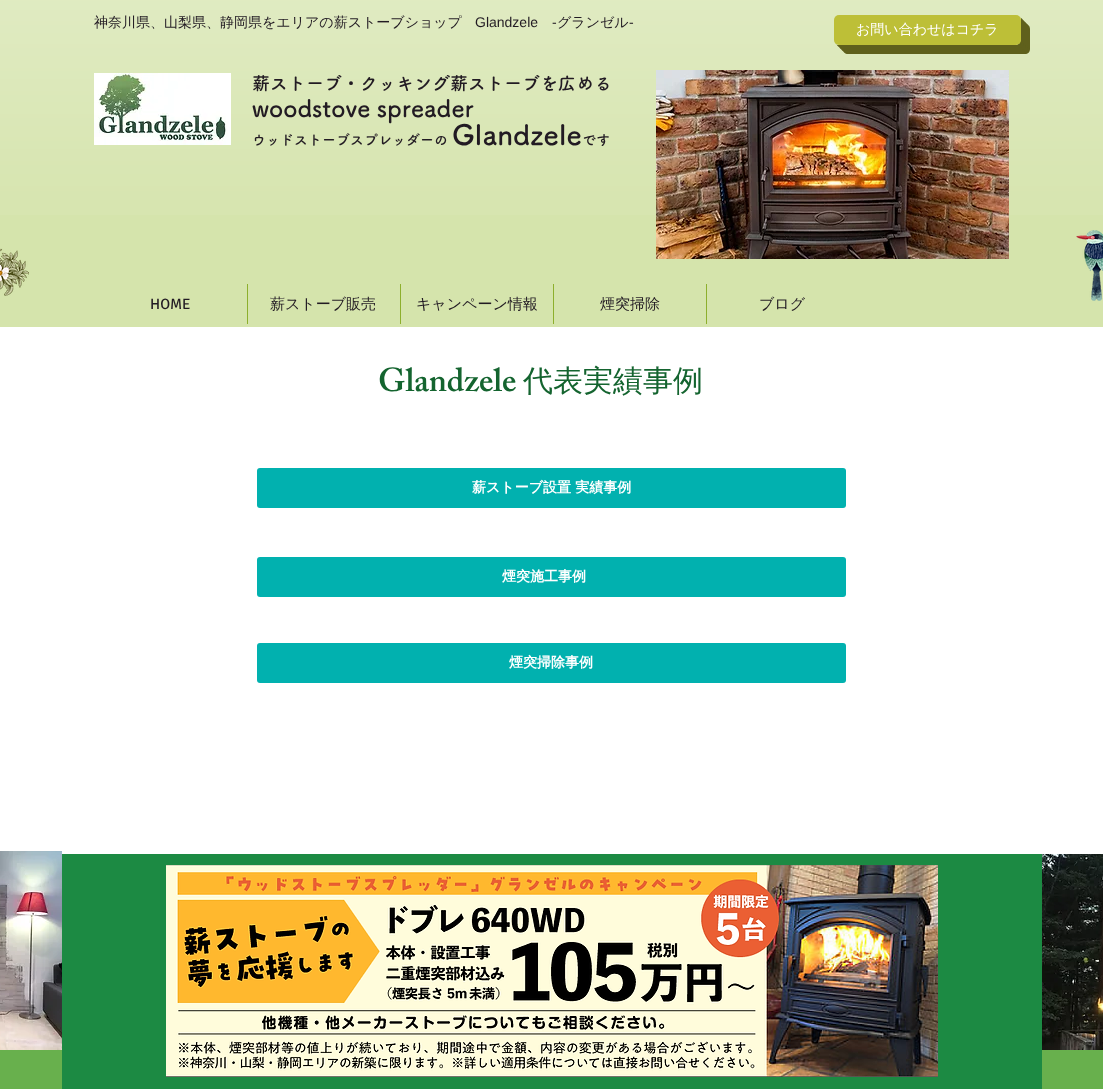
async function draw(canvas) {
  canvas.width = 1103
  canvas.height = 1089
  const ctx = canvas.getContext('2d')
  ctx.miterLimit = 4
  ctx.fontKerning = 'normal'
  async function loadImage(src) {
    const img = new Image()
    img.src = src
    await img.decode()
    return img
  }

  ctx.fillStyle = '#fff'
  ctx.fillRect(0, 0, 1103, 1089)
  ctx.fillStyle = '#d5e4ac'
  ctx.fillRect(0, 0, 1103, 327)
  ctx.drawImage(await loadImage('image0.png'), 0, 0, 1103, 215)
  ctx.font = '500 14px WenQuanYi Zen Hei'
  ctx.fillStyle = '#221b23'
  ctx.fillText('神奈川県、山梨県、静岡県をエリアの薪ストーブショップ', 94, 27)
  ctx.font = '14px Liberation Sans'
  ctx.fillText('Glandzele', 475, 27)
  ctx.fillText('-', 552, 27)
  ctx.font = '500 14px WenQuanYi Zen Hei'
  ctx.fillText('グランゼル', 557, 27)
  ctx.font = '14px Liberation Sans'
  ctx.fillText('-', 629, 27)
  ctx.fillStyle = '#5f601c'
  ctx.beginPath()
  ctx.moveTo(843, 45)
  ctx.lineTo(843, 49)
  ctx.bezierCurveTo(843, 52, 845, 54, 848, 54)
  ctx.lineTo(1025, 54)
  ctx.bezierCurveTo(1028, 54, 1030, 52, 1030, 49)
  ctx.lineTo(1030, 29)
  ctx.bezierCurveTo(1030, 26, 1028, 24, 1025, 24)
  ctx.lineTo(1021, 24)
  ctx.lineTo(1021, 40)
  ctx.bezierCurveTo(1021, 43, 1019, 45, 1016, 45)
  ctx.closePath()
  ctx.fill()
  ctx.beginPath()
  ctx.moveTo(841, 45)
  ctx.lineTo(841, 47)
  ctx.bezierCurveTo(841, 50, 843, 52, 846, 52)
  ctx.lineTo(1023, 52)
  ctx.bezierCurveTo(1026, 52, 1028, 50, 1028, 47)
  ctx.lineTo(1028, 27)
  ctx.bezierCurveTo(1028, 24, 1026, 22, 1023, 22)
  ctx.lineTo(1021, 22)
  ctx.lineTo(1021, 40)
  ctx.bezierCurveTo(1021, 43, 1019, 45, 1016, 45)
  ctx.closePath()
  ctx.fill()
  ctx.beginPath()
  ctx.moveTo(839, 45)
  ctx.bezierCurveTo(839, 48, 841, 50, 844, 50)
  ctx.lineTo(1021, 50)
  ctx.bezierCurveTo(1024, 50, 1026, 48, 1026, 45)
  ctx.lineTo(1026, 25)
  ctx.bezierCurveTo(1026, 22, 1024, 20, 1021, 20)
  ctx.lineTo(1021, 40)
  ctx.bezierCurveTo(1021, 43, 1019, 45, 1016, 45)
  ctx.closePath()
  ctx.fill()
  ctx.beginPath()
  ctx.moveTo(837, 45)
  ctx.bezierCurveTo(838, 47, 840, 48, 842, 48)
  ctx.lineTo(1019, 48)
  ctx.bezierCurveTo(1022, 48, 1024, 46, 1024, 43)
  ctx.lineTo(1024, 23)
  ctx.bezierCurveTo(1024, 21, 1023, 19, 1021, 18)
  ctx.lineTo(1021, 33)
  ctx.bezierCurveTo(1021, 37, 1022, 45, 1016, 45)
  ctx.closePath()
  ctx.fill()
  ctx.beginPath()
  ctx.moveTo(836, 44)
  ctx.bezierCurveTo(837, 45, 838, 46, 840, 46)
  ctx.lineTo(1017, 46)
  ctx.bezierCurveTo(1020, 46, 1022, 44, 1022, 41)
  ctx.lineTo(1022, 21)
  ctx.bezierCurveTo(1022, 19, 1021, 18, 1020, 17)
  ctx.bezierCurveTo(1021, 18, 1021, 19, 1021, 20)
  ctx.lineTo(1021, 40)
  ctx.bezierCurveTo(1021, 43, 1019, 45, 1016, 45)
  ctx.lineTo(839, 45)
  ctx.bezierCurveTo(838, 45, 837, 45, 836, 44)
  ctx.closePath()
  ctx.fill()
  ctx.fillStyle = '#bdbf37'
  ctx.beginPath()
  ctx.roundRect(834, 15, 187, 30, 5)
  ctx.fill()
  ctx.font = '500 14px WenQuanYi Zen Hei'
  ctx.fillStyle = '#fff'
  ctx.fillText('お問い合わせはコチラ', 856, 34)
  ctx.drawImage(await loadImage('image1.png'), 94, 73, 137, 72)
  ctx.font = 'bold 18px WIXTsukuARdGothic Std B'
  ctx.fillStyle = '#221b23'
  ctx.fillText('薪ストーブ・クッキング薪ストーブを広める', 252, 90)
  ctx.font = 'bold 24px WIXTsukuARdGothic Std B'
  ctx.fillText('woodstove spreader', 252, 117)
  ctx.font = 'bold 14px WIXTsukuARdGothic Std B'
  ctx.fillText('ウッドストーブスプレッダーの', 252, 145)
  ctx.font = 'bold 28px WIXTsukuARdGothic Std B'
  ctx.fillText('Glandzele', 452, 145)
  ctx.font = 'bold 14px WIXTsukuARdGothic Std B'
  ctx.fillText('です', 582, 145)
  ctx.drawImage(await loadImage('image2.png'), 656, 70, 353, 189)
  ctx.drawImage(await loadImage('image3.png'), 0, 248, 29, 48)
  ctx.drawImage(await loadImage('image4.png'), 1076, 230, 27, 71)
  ctx.font = '15px Signika'
  ctx.fillText('HOME', 150, 309)
  ctx.fillStyle = '#8daf2d'
  ctx.fillRect(247, 284, 1, 40)
  ctx.font = '500 15px WenQuanYi Zen Hei'
  ctx.fillStyle = '#221b23'
  ctx.fillText('薪ストーブ販売', 270, 309)
  ctx.fillStyle = '#8daf2d'
  ctx.fillRect(400, 284, 1, 40)
  ctx.fillStyle = '#221b23'
  ctx.fillText('キャンペーン情報', 416, 309)
  ctx.fillStyle = '#8daf2d'
  ctx.fillRect(553, 284, 1, 40)
  ctx.fillStyle = '#221b23'
  ctx.fillText('煙突掃除', 600, 309)
  ctx.fillStyle = '#8daf2d'
  ctx.fillRect(706, 284, 1, 40)
  ctx.fillStyle = '#221b23'
  ctx.fillText('ブログ', 759, 309)
  ctx.font = '600 33px "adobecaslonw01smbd"'
  ctx.fillStyle = '#14642f'
  ctx.fillText('Glandzele', 378, 391)
  ctx.font = '500 30px WenQuanYi Zen Hei'
  ctx.fillText('代表実績事例', 523, 391)
  ctx.fillStyle = '#01b1af'
  ctx.beginPath()
  ctx.roundRect(257, 468, 589, 40, 3)
  ctx.fill()
  ctx.font = 'bold 14px WenQuanYi Zen Hei'
  ctx.fillStyle = '#fff'
  ctx.fillText('薪ストーブ設置 実績事例', 472, 492)
  ctx.fillStyle = '#01b1af'
  ctx.beginPath()
  ctx.roundRect(257, 557, 589, 40, 3)
  ctx.fill()
  ctx.fillStyle = '#fff'
  ctx.fillText('煙突施工事例', 502, 581)
  ctx.fillStyle = '#01b1af'
  ctx.beginPath()
  ctx.roundRect(257, 643, 589, 40, 3)
  ctx.fill()
  ctx.fillStyle = '#fff'
  ctx.fillText('煙突掃除事例', 509, 667)
  ctx.drawImage(await loadImage('image5.png'), 0, 851, 62, 199)
  ctx.fillStyle = '#68b04d'
  ctx.fillRect(0, 1050, 1103, 39)
  ctx.fillStyle = '#1c8a43'
  ctx.fillRect(62, 854, 980, 235)
  ctx.drawImage(await loadImage('image6.png'), 166, 865, 772, 212)
  ctx.drawImage(await loadImage('image7.png'), 1042, 854, 61, 196)
}

draw(document.querySelector('canvas'))
